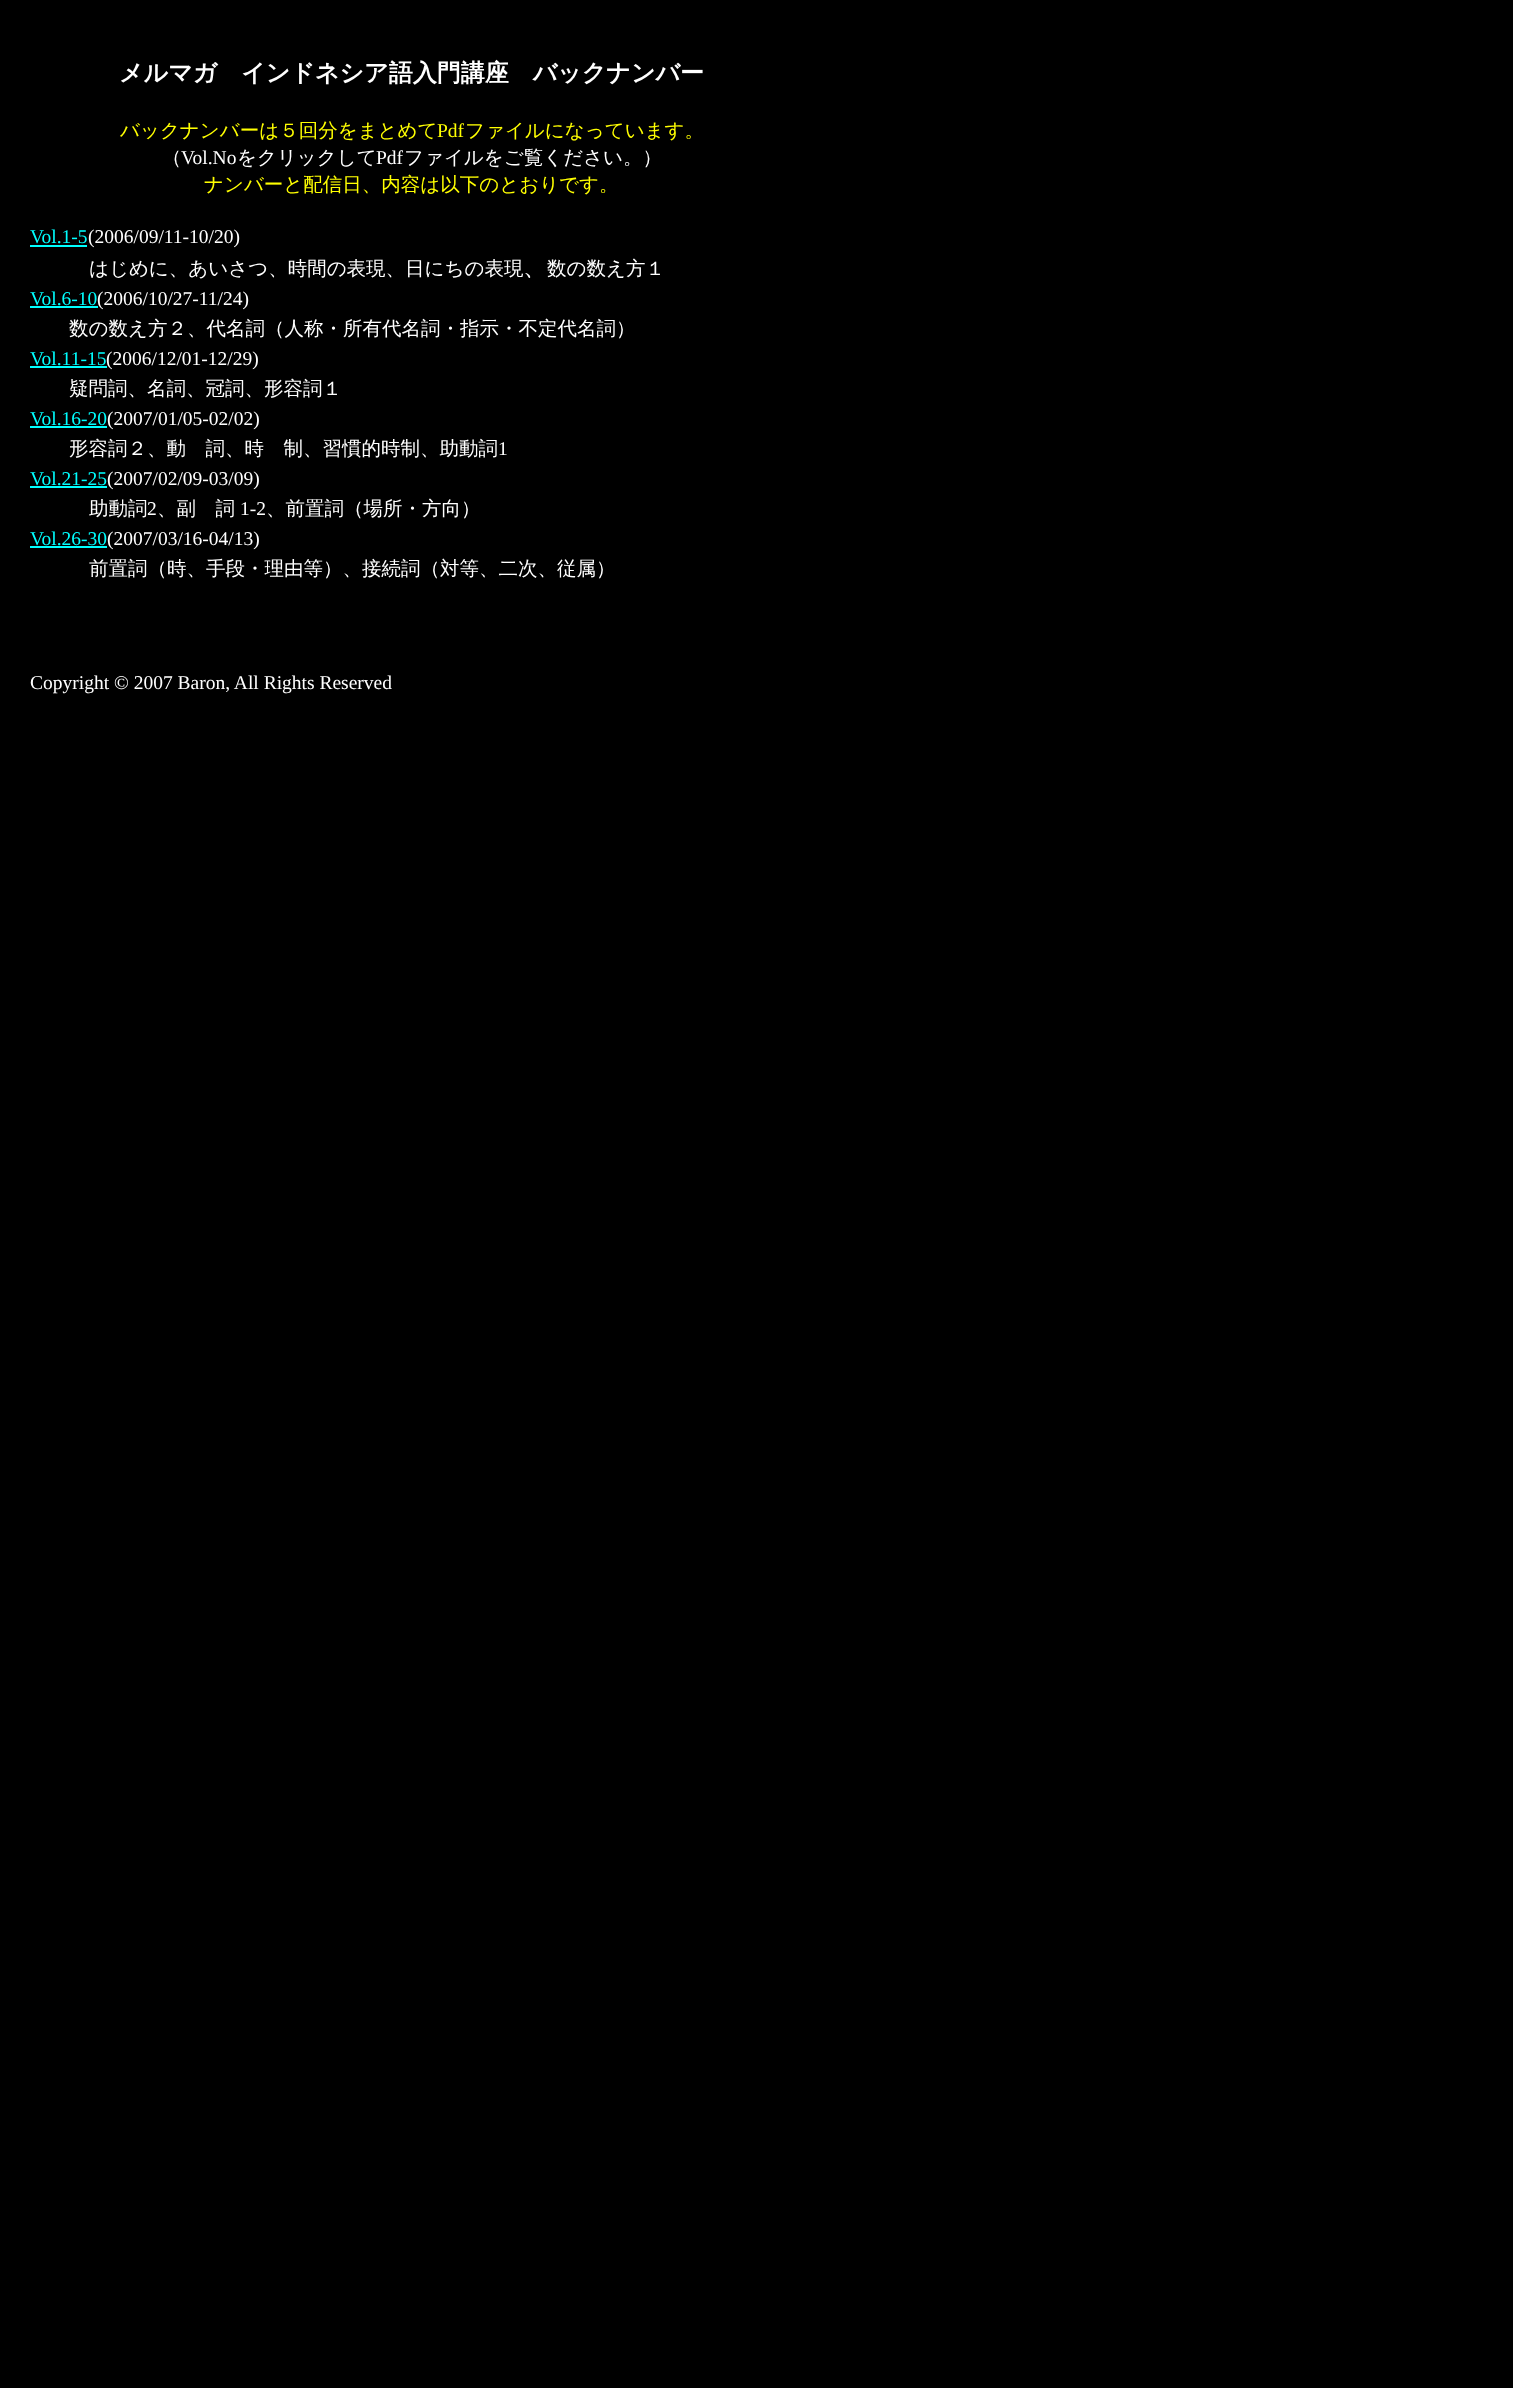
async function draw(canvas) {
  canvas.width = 1513
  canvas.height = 2388
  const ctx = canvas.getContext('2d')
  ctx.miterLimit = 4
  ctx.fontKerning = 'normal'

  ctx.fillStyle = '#000'
  ctx.fillRect(0, 0, 1513, 2388)
  ctx.font = 'bold 24px WenQuanYi Zen Hei'
  ctx.fillStyle = '#fff'
  ctx.fillText('メルマガ　インドネシア語入門講座　バックナンバー', 119, 81)
  ctx.font = '500 19.5px WenQuanYi Zen Hei'
  ctx.fillStyle = '#ff0'
  ctx.fillText('バックナンバーは５回分をまとめて', 120, 137)
  ctx.font = '19.5px Liberation Serif'
  ctx.fillText('Pdf', 437, 137)
  ctx.font = '500 19.5px WenQuanYi Zen Hei'
  ctx.fillText('ファイルになっています。', 465, 137)
  ctx.fillStyle = '#fff'
  ctx.fillText('（', 162, 164)
  ctx.font = '19.5px Liberation Serif'
  ctx.fillText('Vol.No', 181, 164)
  ctx.font = '500 19.5px WenQuanYi Zen Hei'
  ctx.fillText('をクリックして', 237, 164)
  ctx.font = '19.5px Liberation Serif'
  ctx.fillText('Pdf', 376, 164)
  ctx.font = '500 19.5px WenQuanYi Zen Hei'
  ctx.fillText('ファイルをご覧ください。）', 404, 164)
  ctx.fillStyle = '#ff0'
  ctx.fillText('ナンバーと配信日、内容は以下のとおりです。', 204, 191)
  ctx.font = '19.5px Liberation Serif'
  ctx.fillStyle = '#0ff'
  ctx.fillText('Vol.1-5', 30, 243)
  ctx.fillStyle = '#fff'
  ctx.fillText('(2006/09/11-10/20)', 88, 243)
  ctx.fillStyle = '#0ff'
  ctx.fillRect(30, 245, 57, 2)
  ctx.font = '500 19.5px WenQuanYi Zen Hei'
  ctx.fillStyle = '#fff'
  ctx.fillText('はじめに、あいさつ、時間の表現、日にちの表現', 89, 275)
  ctx.font = '500 24px WenQuanYi Zen Hei'
  ctx.fillText('、', 523, 275)
  ctx.font = '500 19.5px WenQuanYi Zen Hei'
  ctx.fillText('数の数え方１', 547, 275)
  ctx.font = '19.5px Liberation Serif'
  ctx.fillStyle = '#0ff'
  ctx.fillText('Vol.6-10', 30, 305)
  ctx.fillStyle = '#fff'
  ctx.fillText('(2006/10/27-11/24)', 97, 305)
  ctx.fillStyle = '#0ff'
  ctx.fillRect(30, 306, 68, 2)
  ctx.font = '500 19.5px WenQuanYi Zen Hei'
  ctx.fillStyle = '#fff'
  ctx.fillText('数の数え方２、代名詞（人称・所有代名詞・指示・不定代名詞）', 69, 335)
  ctx.font = '19.5px Liberation Serif'
  ctx.fillStyle = '#0ff'
  ctx.fillText('Vol.11-15', 30, 365)
  ctx.fillStyle = '#fff'
  ctx.fillText('(2006/12/01-12/29)', 106, 365)
  ctx.fillStyle = '#0ff'
  ctx.fillRect(30, 366, 77, 2)
  ctx.font = '500 19.5px WenQuanYi Zen Hei'
  ctx.fillStyle = '#fff'
  ctx.fillText('疑問詞、名詞、冠詞、形容詞１', 69, 395)
  ctx.font = '19.5px Liberation Serif'
  ctx.fillStyle = '#0ff'
  ctx.fillText('Vol.16-20', 30, 425)
  ctx.fillStyle = '#fff'
  ctx.fillText('(2007/01/05-02/02)', 107, 425)
  ctx.fillStyle = '#0ff'
  ctx.fillRect(30, 426, 77, 2)
  ctx.font = '500 19.5px WenQuanYi Zen Hei'
  ctx.fillStyle = '#fff'
  ctx.fillText('形容詞２、動　詞、時　制、習慣的時制、助動詞', 69, 455)
  ctx.font = '19.5px Liberation Serif'
  ctx.fillText('1', 498, 455)
  ctx.fillStyle = '#0ff'
  ctx.fillText('Vol.21-25', 30, 485)
  ctx.fillStyle = '#fff'
  ctx.fillText('(2007/02/09-03/09)', 107, 485)
  ctx.fillStyle = '#0ff'
  ctx.fillRect(30, 486, 77, 2)
  ctx.font = '500 19.5px WenQuanYi Zen Hei'
  ctx.fillStyle = '#fff'
  ctx.fillText('助動詞', 89, 515)
  ctx.font = '19.5px Liberation Serif'
  ctx.fillText('2', 147, 515)
  ctx.font = '500 19.5px WenQuanYi Zen Hei'
  ctx.fillText('、副　詞', 157, 515)
  ctx.font = '19.5px Liberation Serif'
  ctx.fillText('1-2', 240, 515)
  ctx.font = '500 19.5px WenQuanYi Zen Hei'
  ctx.fillText('、前置詞（場所・方向）', 266, 515)
  ctx.font = '19.5px Liberation Serif'
  ctx.fillStyle = '#0ff'
  ctx.fillText('Vol.26-30', 30, 545)
  ctx.fillStyle = '#fff'
  ctx.fillText('(2007/03/16-04/13)', 107, 545)
  ctx.fillStyle = '#0ff'
  ctx.fillRect(30, 546, 77, 2)
  ctx.font = '500 19.5px WenQuanYi Zen Hei'
  ctx.fillStyle = '#fff'
  ctx.fillText('前置詞（時、手段・理由等）、接続詞（対等、二次、従属）', 89, 575)
  ctx.font = '19.5px Liberation Serif'
  ctx.fillText('Copyright © 2007 Baron, All Rights Reserved', 30, 689)
}

draw(document.querySelector('canvas'))
